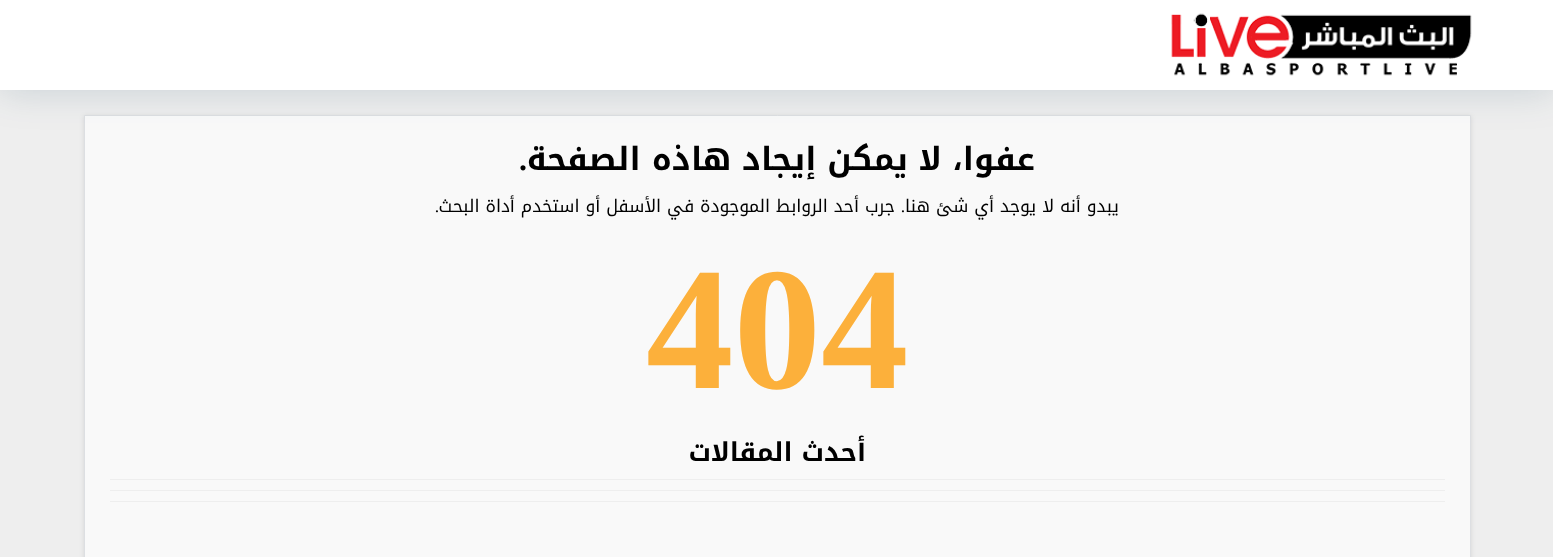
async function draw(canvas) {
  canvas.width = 1553
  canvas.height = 557
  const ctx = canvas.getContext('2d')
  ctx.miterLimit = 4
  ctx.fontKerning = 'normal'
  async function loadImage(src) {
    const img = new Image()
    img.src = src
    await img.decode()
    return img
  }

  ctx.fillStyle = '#eee'
  ctx.fillRect(0, 0, 1553, 557)
  ctx.fillStyle = '#0000001a'
  ctx.filter = 'blur(2.5px)'
  ctx.beginPath()
  ctx.rect(84, 116, 1387, 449)
  ctx.fill()
  ctx.filter = 'none'
  ctx.fillStyle = '#f9f9f9'
  ctx.beginPath()
  ctx.rect(84.5, 115.5, 1386, 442)
  ctx.fill()
  ctx.strokeStyle = '#dddfe2'
  ctx.stroke()
  ctx.fillStyle = '#0733542b'
  ctx.filter = 'blur(19px)'
  ctx.beginPath()
  ctx.rect(0, 0, 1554, 90)
  ctx.fill()
  ctx.filter = 'none'
  ctx.fillStyle = '#fff'
  ctx.fillRect(0, 0, 1553, 90)
  ctx.drawImage(await loadImage('image0.png'), 1171, 13, 301, 63)
  ctx.direction = 'rtl'
  ctx.font = 'bold 32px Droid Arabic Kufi'
  ctx.fillStyle = '#000'
  ctx.fillText('عفوا، لا يمكن إيجاد هاذه الصفحة', 1035, 170)
  ctx.font = 'bold 32px Liberation Serif'
  ctx.fillText('.', 527, 170)
  ctx.font = '17.5px Droid Arabic Kufi'
  ctx.fillText('يبدو أنه لا يوجد أي شئ هنا', 1119, 212)
  ctx.font = '17.5px Liberation Serif'
  ctx.fillText('.', 905, 212)
  ctx.font = '17.5px Droid Arabic Kufi'
  ctx.fillText('جرب أحد الروابط الموجودة في الأسفل أو استخدم أداة البحث', 895, 212)
  ctx.font = '17.5px Liberation Serif'
  ctx.fillText('.', 439, 212)
  ctx.direction = 'ltr'
  ctx.font = 'bold 175px Liberation Serif'
  ctx.fillStyle = '#fcb03b'
  ctx.fillText('404', 646, 388)
  ctx.direction = 'rtl'
  ctx.font = 'bold 26px Droid Arabic Kufi'
  ctx.fillStyle = '#000'
  ctx.fillText('أحدث المقالات', 866, 461)
  ctx.fillStyle = '#eee'
  ctx.fillRect(110, 479, 1335, 1)
  ctx.fillRect(110, 490, 1335, 1)
  ctx.fillRect(110, 501, 1335, 1)
}

draw(document.querySelector('canvas'))
